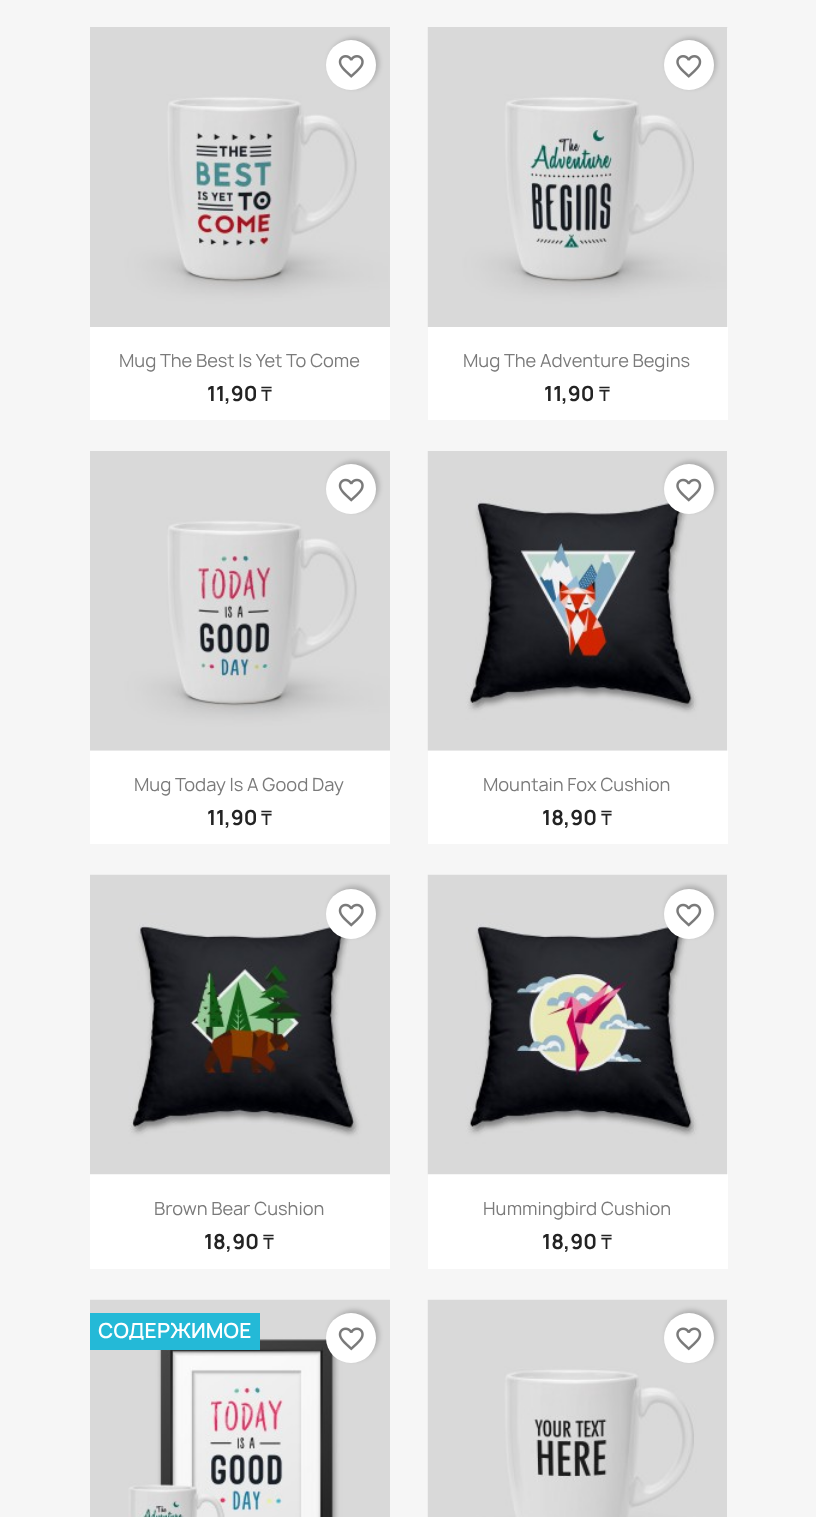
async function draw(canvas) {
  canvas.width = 816
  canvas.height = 1517
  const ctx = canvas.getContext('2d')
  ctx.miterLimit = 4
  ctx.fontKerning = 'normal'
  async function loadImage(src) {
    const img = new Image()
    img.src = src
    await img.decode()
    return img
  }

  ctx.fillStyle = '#f6f6f6'
  ctx.fillRect(0, 0, 816, 1517)
  ctx.fillStyle = '#fff'
  ctx.fillRect(90, 327, 300, 93)
  ctx.drawImage(await loadImage('image0.png'), 90, 27, 300, 300)
  ctx.fillStyle = '#00000033'
  ctx.filter = 'blur(2.5px)'
  ctx.beginPath()
  ctx.roundRect(329, 38, 50, 50, 25)
  ctx.fill()
  ctx.filter = 'none'
  ctx.fillStyle = '#fff'
  ctx.beginPath()
  ctx.arc(351, 65, 25, 0, 2 * Math.PI)
  ctx.fill()
  ctx.drawImage(await loadImage('image1.png'), 338, 55, 26, 23)
  ctx.font = '17.5px Manrope'
  ctx.fillStyle = '#7a7a7a'
  ctx.fillText('Mug The Best Is Yet To Come', 119, 367)
  ctx.font = 'bold 20px Manrope'
  ctx.fillStyle = '#232323'
  ctx.fillText('11,90', 207, 401)
  ctx.font = '20px Noto Sans'
  ctx.fillText('₸', 261, 401)
  ctx.fillStyle = '#fff'
  ctx.fillRect(428, 28, 300, 392)
  ctx.drawImage(await loadImage('image2.png'), 427, 27, 301, 300)
  ctx.fillStyle = '#00000033'
  ctx.filter = 'blur(2.5px)'
  ctx.beginPath()
  ctx.roundRect(666, 38, 50, 50, 25)
  ctx.fill()
  ctx.filter = 'none'
  ctx.fillStyle = '#fff'
  ctx.beginPath()
  ctx.arc(689, 65, 25, 0, 2 * Math.PI)
  ctx.fill()
  ctx.drawImage(await loadImage('image3.png'), 676, 55, 26, 23)
  ctx.font = '17.5px Manrope'
  ctx.fillStyle = '#7a7a7a'
  ctx.fillText('Mug The Adventure Begins', 463, 367)
  ctx.font = 'bold 20px Manrope'
  ctx.fillStyle = '#232323'
  ctx.fillText('11,90', 544, 401)
  ctx.font = '20px Noto Sans'
  ctx.fillText('₸', 599, 401)
  ctx.fillStyle = '#fff'
  ctx.fillRect(90, 750, 300, 94)
  ctx.drawImage(await loadImage('image4.png'), 90, 451, 300, 300)
  ctx.fillStyle = '#00000033'
  ctx.filter = 'blur(2.5px)'
  ctx.beginPath()
  ctx.roundRect(329, 461, 50, 50, 25)
  ctx.fill()
  ctx.filter = 'none'
  ctx.fillStyle = '#fff'
  ctx.beginPath()
  ctx.arc(351, 489, 25, 0, 2 * Math.PI)
  ctx.fill()
  ctx.drawImage(await loadImage('image5.png'), 338, 478, 26, 24)
  ctx.font = '17.5px Manrope'
  ctx.fillStyle = '#7a7a7a'
  ctx.fillText('Mug Today Is A Good Day', 134, 791)
  ctx.font = 'bold 20px Manrope'
  ctx.fillStyle = '#232323'
  ctx.fillText('11,90', 207, 825)
  ctx.font = '20px Noto Sans'
  ctx.fillText('₸', 261, 825)
  ctx.fillStyle = '#fff'
  ctx.fillRect(428, 451, 300, 393)
  ctx.drawImage(await loadImage('image6.png'), 427, 451, 301, 300)
  ctx.fillStyle = '#00000033'
  ctx.filter = 'blur(2.5px)'
  ctx.beginPath()
  ctx.roundRect(666, 461, 50, 50, 25)
  ctx.fill()
  ctx.filter = 'none'
  ctx.fillStyle = '#fff'
  ctx.beginPath()
  ctx.arc(689, 489, 25, 0, 2 * Math.PI)
  ctx.fill()
  ctx.drawImage(await loadImage('image7.png'), 676, 478, 26, 24)
  ctx.font = '17.5px Manrope'
  ctx.fillStyle = '#7a7a7a'
  ctx.fillText('Mountain Fox Cushion', 483, 791)
  ctx.font = 'bold 20px Manrope'
  ctx.fillStyle = '#232323'
  ctx.fillText('18,90', 542, 825)
  ctx.font = '20px Noto Sans'
  ctx.fillText('₸', 601, 825)
  ctx.fillStyle = '#fff'
  ctx.fillRect(90, 1174, 300, 95)
  ctx.drawImage(await loadImage('image8.png'), 90, 874, 300, 301)
  ctx.fillStyle = '#00000033'
  ctx.filter = 'blur(2.5px)'
  ctx.beginPath()
  ctx.roundRect(329, 886, 50, 50, 25)
  ctx.fill()
  ctx.filter = 'none'
  ctx.fillStyle = '#fff'
  ctx.beginPath()
  ctx.arc(351, 914, 25, 0, 2 * Math.PI)
  ctx.fill()
  ctx.drawImage(await loadImage('image5.png'), 338, 903, 26, 24)
  ctx.font = '17.5px Manrope'
  ctx.fillStyle = '#7a7a7a'
  ctx.fillText('Brown Bear Cushion', 154, 1215)
  ctx.font = 'bold 20px Manrope'
  ctx.fillStyle = '#232323'
  ctx.fillText('18,90', 204, 1249)
  ctx.font = '20px Noto Sans'
  ctx.fillText('₸', 263, 1249)
  ctx.fillStyle = '#fff'
  ctx.fillRect(428, 875, 300, 394)
  ctx.drawImage(await loadImage('image9.png'), 427, 874, 301, 301)
  ctx.fillStyle = '#00000033'
  ctx.filter = 'blur(2.5px)'
  ctx.beginPath()
  ctx.roundRect(666, 886, 50, 50, 25)
  ctx.fill()
  ctx.filter = 'none'
  ctx.fillStyle = '#fff'
  ctx.beginPath()
  ctx.arc(689, 914, 25, 0, 2 * Math.PI)
  ctx.fill()
  ctx.drawImage(await loadImage('image7.png'), 676, 903, 26, 24)
  ctx.font = '17.5px Manrope'
  ctx.fillStyle = '#7a7a7a'
  ctx.fillText('Hummingbird Cushion', 483, 1215)
  ctx.font = 'bold 20px Manrope'
  ctx.fillStyle = '#232323'
  ctx.fillText('18,90', 542, 1249)
  ctx.font = '20px Noto Sans'
  ctx.fillText('₸', 601, 1249)
  ctx.drawImage(await loadImage('image10.png'), 90, 1299, 300, 218)
  ctx.fillStyle = '#24b9d7'
  ctx.fillRect(90, 1313, 170, 37)
  ctx.font = '600 20px Manrope'
  ctx.fillStyle = '#fff'
  ctx.fillText('СОДЕРЖИМОЕ', 98, 1338)
  ctx.fillStyle = '#00000033'
  ctx.filter = 'blur(2.5px)'
  ctx.beginPath()
  ctx.roundRect(329, 1310, 50, 50, 25)
  ctx.fill()
  ctx.filter = 'none'
  ctx.fillStyle = '#fff'
  ctx.beginPath()
  ctx.arc(351, 1338, 25, 0, 2 * Math.PI)
  ctx.fill()
  ctx.drawImage(await loadImage('image11.png'), 338, 1327, 26, 24)
  ctx.fillRect(727, 1300, 1, 217)
  ctx.drawImage(await loadImage('image12.png'), 427, 1299, 301, 218)
  ctx.fillStyle = '#00000033'
  ctx.filter = 'blur(2.5px)'
  ctx.beginPath()
  ctx.roundRect(666, 1310, 50, 50, 25)
  ctx.fill()
  ctx.filter = 'none'
  ctx.fillStyle = '#fff'
  ctx.beginPath()
  ctx.arc(689, 1338, 25, 0, 2 * Math.PI)
  ctx.fill()
  ctx.drawImage(await loadImage('image13.png'), 676, 1327, 26, 24)
}

draw(document.querySelector('canvas'))
